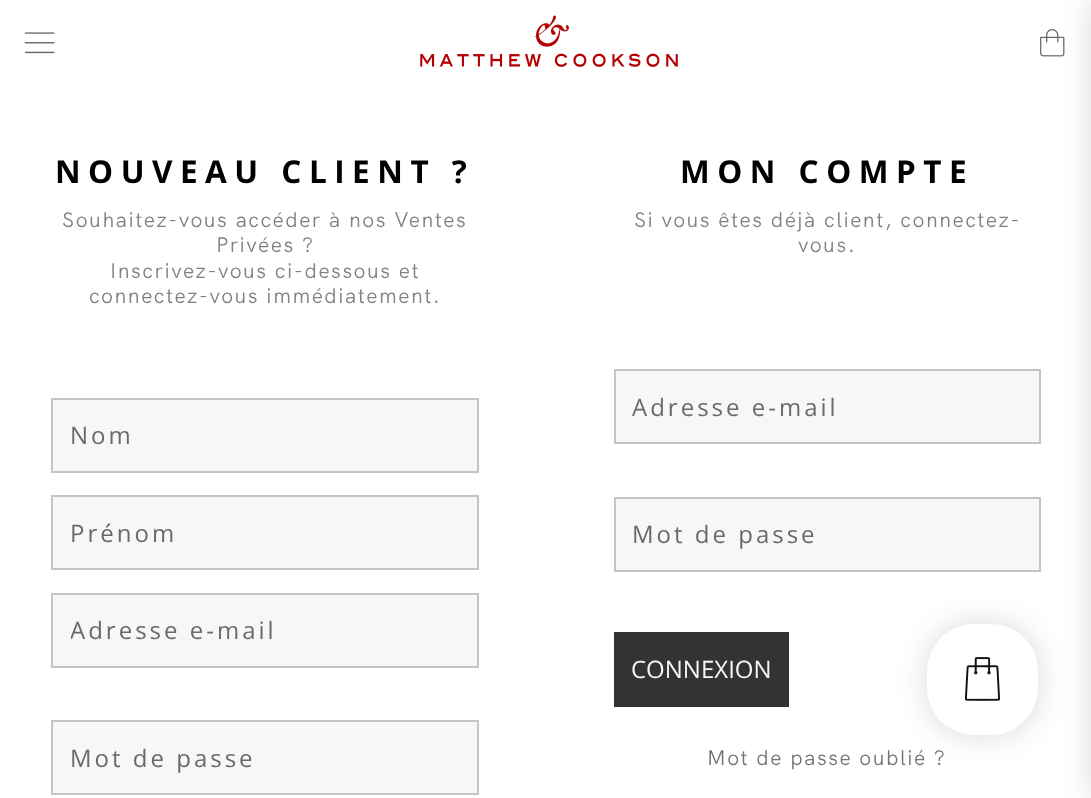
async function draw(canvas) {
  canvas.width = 1091
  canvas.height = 798
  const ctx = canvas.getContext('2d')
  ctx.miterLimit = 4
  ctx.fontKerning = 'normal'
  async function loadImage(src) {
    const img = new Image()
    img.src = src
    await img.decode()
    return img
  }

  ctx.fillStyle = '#fff'
  ctx.fillRect(0, 0, 1091, 798)
  ctx.drawImage(await loadImage('image3.png'), 1040, 29, 25, 28)
  ctx.fillStyle = '#00000026'
  ctx.filter = 'blur(15px)'
  ctx.beginPath()
  ctx.roundRect(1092, 0, 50, 798, 6)
  ctx.fill()
  ctx.filter = 'none'
  ctx.filter = 'blur(15px)'
  ctx.beginPath()
  ctx.roundRect(927, 624, 111, 111, 47)
  ctx.fill()
  ctx.filter = 'none'
  ctx.fillStyle = '#fff'
  ctx.beginPath()
  ctx.roundRect(927, 624, 111, 111, 47)
  ctx.fill()
  ctx.drawImage(await loadImage('image0.png'), 965, 657, 35, 44)
  ctx.drawImage(await loadImage('image1.png'), 24, 32, 31, 22)
  ctx.drawImage(await loadImage('image2.png'), 420, 15, 258, 52)
  ctx.letterSpacing = '7.5px'
  ctx.font = 'bold 31.5px Open Sans'
  ctx.fillStyle = '#000'
  ctx.fillText('NOUVEAU CLIENT ?', 55, 183)
  ctx.letterSpacing = '1.5px'
  ctx.font = '21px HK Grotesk'
  ctx.fillStyle = '#808080'
  ctx.fillText('Souhaitez-vous accéder à nos Ventes', 62, 227)
  ctx.fillText('Privées ?', 216, 252)
  ctx.fillText('Inscrivez-vous ci-dessous et', 110, 278)
  ctx.fillText('connectez-vous immédiatement.', 89, 303)
  ctx.fillStyle = '#f7f7f7'
  ctx.beginPath()
  ctx.rect(52, 399, 426, 73)
  ctx.fill()
  ctx.strokeStyle = '#c4c4c4'
  ctx.lineWidth = 2
  ctx.stroke()
  ctx.letterSpacing = '3px'
  ctx.font = '24px Open Sans'
  ctx.fillStyle = '#6a6a6a'
  ctx.fillText('Nom', 70, 444)
  ctx.fillStyle = '#f7f7f7'
  ctx.beginPath()
  ctx.rect(52, 496, 426, 73)
  ctx.fill()
  ctx.stroke()
  ctx.fillStyle = '#6a6a6a'
  ctx.fillText('Prénom', 70, 542)
  ctx.fillStyle = '#f7f7f7'
  ctx.beginPath()
  ctx.rect(52, 594, 426, 73)
  ctx.fill()
  ctx.stroke()
  ctx.save()
  ctx.beginPath()
  ctx.rect(71, 614, 388, 33)
  ctx.clip()
  ctx.fillStyle = '#6a6a6a'
  ctx.fillText('Adresse e-mail', 70, 639)
  ctx.restore()
  ctx.beginPath()
  ctx.rect(52, 721, 426, 73)
  ctx.fill()
  ctx.stroke()
  ctx.fillStyle = '#6a6a6a'
  ctx.fillText('Mot de passe', 70, 767)
  ctx.letterSpacing = '7.5px'
  ctx.font = 'bold 31.5px Open Sans'
  ctx.fillStyle = '#000'
  ctx.fillText('MON COMPTE', 680, 183)
  ctx.letterSpacing = '1.5px'
  ctx.font = '21px HK Grotesk'
  ctx.fillStyle = '#808080'
  ctx.fillText('Si vous êtes déjà client, connectez-', 634, 227)
  ctx.fillText('vous.', 798, 252)
  ctx.fillStyle = '#f7f7f7'
  ctx.beginPath()
  ctx.rect(615, 370, 425, 73)
  ctx.fill()
  ctx.stroke()
  ctx.letterSpacing = '3px'
  ctx.font = '24px Open Sans'
  ctx.fillStyle = '#6a6a6a'
  ctx.fillText('Adresse e-mail', 632, 416)
  ctx.fillStyle = '#f7f7f7'
  ctx.beginPath()
  ctx.rect(615, 498, 425, 73)
  ctx.fill()
  ctx.stroke()
  ctx.fillStyle = '#6a6a6a'
  ctx.fillText('Mot de passe', 632, 543)
  ctx.fillStyle = '#333'
  ctx.fillRect(614, 632, 175, 75)
  ctx.letterSpacing = '0px'
  ctx.fillStyle = '#f7f7f7'
  ctx.fillText('CONNEXION', 631, 678)
  ctx.letterSpacing = '1.5px'
  ctx.font = '21px HK Grotesk'
  ctx.fillStyle = '#737373'
  ctx.fillText('Mot de passe oublié ?', 707, 765)
}

draw(document.querySelector('canvas'))
